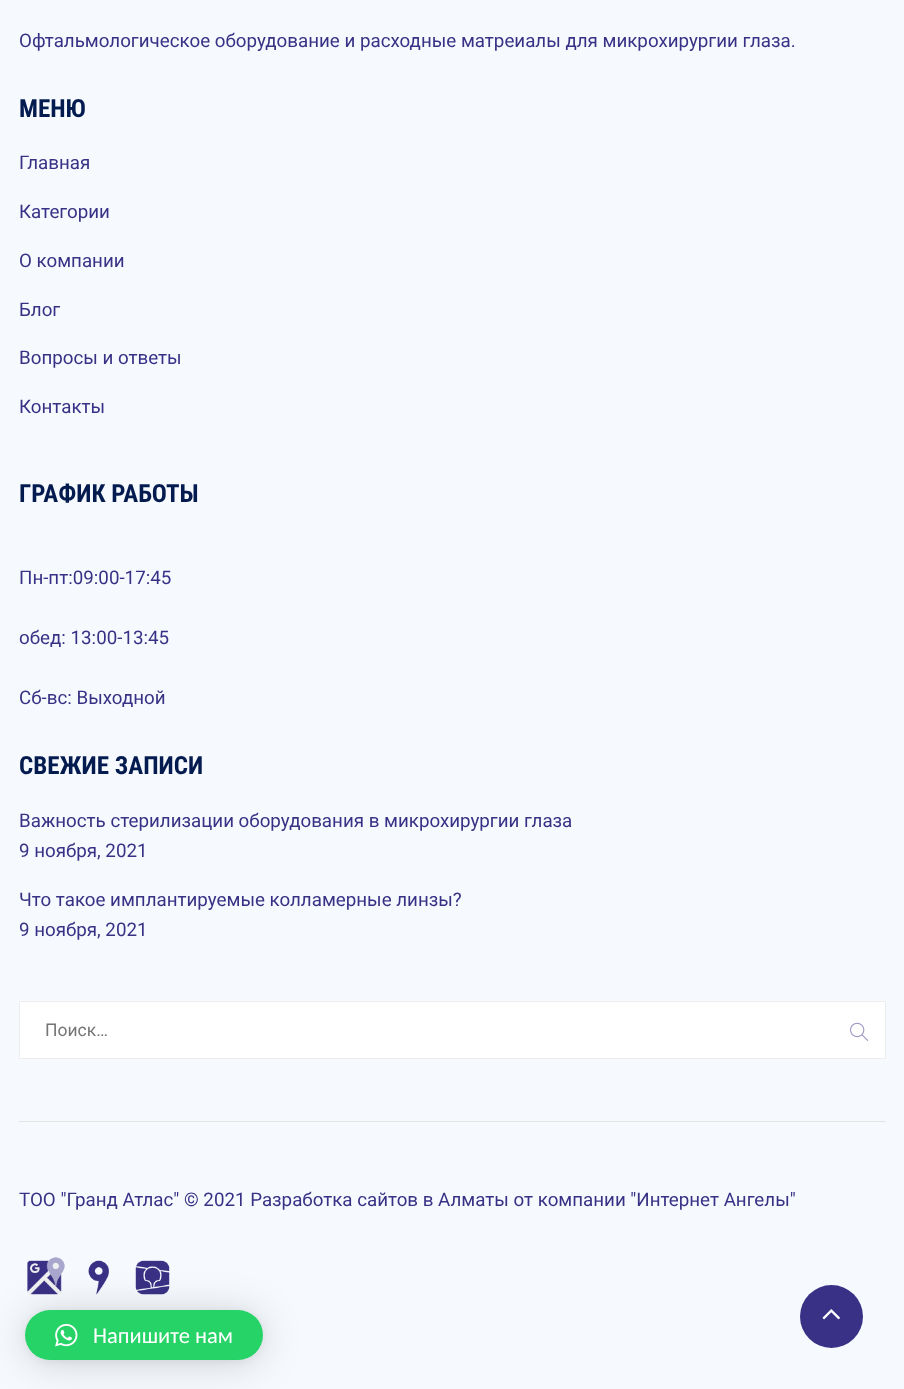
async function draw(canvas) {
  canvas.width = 904
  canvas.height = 1389
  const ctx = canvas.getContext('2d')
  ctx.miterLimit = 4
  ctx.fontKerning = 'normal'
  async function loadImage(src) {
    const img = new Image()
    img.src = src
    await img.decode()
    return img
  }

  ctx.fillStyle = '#f6faff'
  ctx.fillRect(0, 0, 904, 1389)
  ctx.fillStyle = '#e5e5e5'
  ctx.fillRect(19, 1121, 867, 1)
  ctx.font = '18.75px Roboto'
  ctx.fillStyle = '#393185'
  ctx.fillText('Офтальмологическое оборудование и расходные матреиалы для микрохирургии глаза.', 19, 47)
  ctx.font = 'bold 25px Roboto Condensed'
  ctx.fillStyle = '#031b4e'
  ctx.fillText('МЕНЮ', 19, 117)
  ctx.font = '18.75px Roboto'
  ctx.fillStyle = '#393185'
  ctx.fillText('Главная', 19, 169)
  ctx.fillText('Категории', 19, 218)
  ctx.fillText('О компании', 19, 267)
  ctx.fillText('Блог', 19, 316)
  ctx.fillText('Вопросы и ответы', 19, 364)
  ctx.fillText('Контакты', 19, 413)
  ctx.font = 'bold 25px Roboto Condensed'
  ctx.fillStyle = '#031b4e'
  ctx.fillText('ГРАФИК РАБОТЫ', 19, 502)
  ctx.font = '18.75px Roboto'
  ctx.fillStyle = '#393185'
  ctx.fillText('Пн-пт:09:00-17:45', 19, 584)
  ctx.fillText('обед: 13:00-13:45', 19, 644)
  ctx.fillText('Сб-вс: Выходной', 19, 704)
  ctx.font = 'bold 25px Roboto Condensed'
  ctx.fillStyle = '#031b4e'
  ctx.fillText('СВЕЖИЕ ЗАПИСИ', 19, 774)
  ctx.font = '18.75px Roboto'
  ctx.fillStyle = '#393185'
  ctx.fillText('Важность стерилизации оборудования в микрохирургии глаза', 19, 827)
  ctx.fillText('9 ноября, 2021', 19, 857)
  ctx.fillText('Что такое имплантируемые колламерные линзы?', 19, 906)
  ctx.fillText('9 ноября, 2021', 19, 936)
  ctx.fillStyle = '#fff'
  ctx.beginPath()
  ctx.rect(19.5, 1001.5, 866, 57)
  ctx.fill()
  ctx.strokeStyle = '#ededed'
  ctx.stroke()
  ctx.font = '17.5px Roboto'
  ctx.fillStyle = '#757575'
  ctx.fillText('Поиск…', 45, 1036)
  ctx.drawImage(await loadImage('image0.png'), 850, 1022, 19, 19)
  ctx.font = '18.75px Roboto'
  ctx.fillStyle = '#393185'
  ctx.fillText('ТОО "Гранд Атлас" © 2021 Разработка сайтов в Алматы от компании "Интернет Ангелы"', 19, 1206)
  ctx.drawImage(await loadImage('image1.png'), 27, 1257, 38, 38)
  ctx.drawImage(await loadImage('image2.png'), 88, 1260, 21, 35)
  ctx.drawImage(await loadImage('image3.png'), 135, 1260, 35, 35)
  ctx.fillStyle = '#00000029'
  ctx.filter = 'blur(20px)'
  ctx.beginPath()
  ctx.roundRect(25, 1313, 238, 50, 25)
  ctx.fill()
  ctx.filter = 'none'
  ctx.fillStyle = '#0000000f'
  ctx.filter = 'blur(4px)'
  ctx.beginPath()
  ctx.roundRect(25, 1311, 238, 50, 25)
  ctx.fill()
  ctx.filter = 'none'
  ctx.fillStyle = '#25d366'
  ctx.beginPath()
  ctx.roundRect(25, 1310, 238, 50, 25)
  ctx.fill()
  ctx.drawImage(await loadImage('image4.png'), 55, 1323, 23, 24)
  ctx.font = '22.5px Carlito'
  ctx.fillStyle = '#fff'
  ctx.fillText('Напишите нам', 93, 1343)
  ctx.fillStyle = '#393185'
  ctx.beginPath()
  ctx.arc(831.5, 1316.5, 31.5, 0, 2 * Math.PI)
  ctx.fill()
  ctx.drawImage(await loadImage('image5.png'), 822, 1309, 18, 11)
}

draw(document.querySelector('canvas'))
